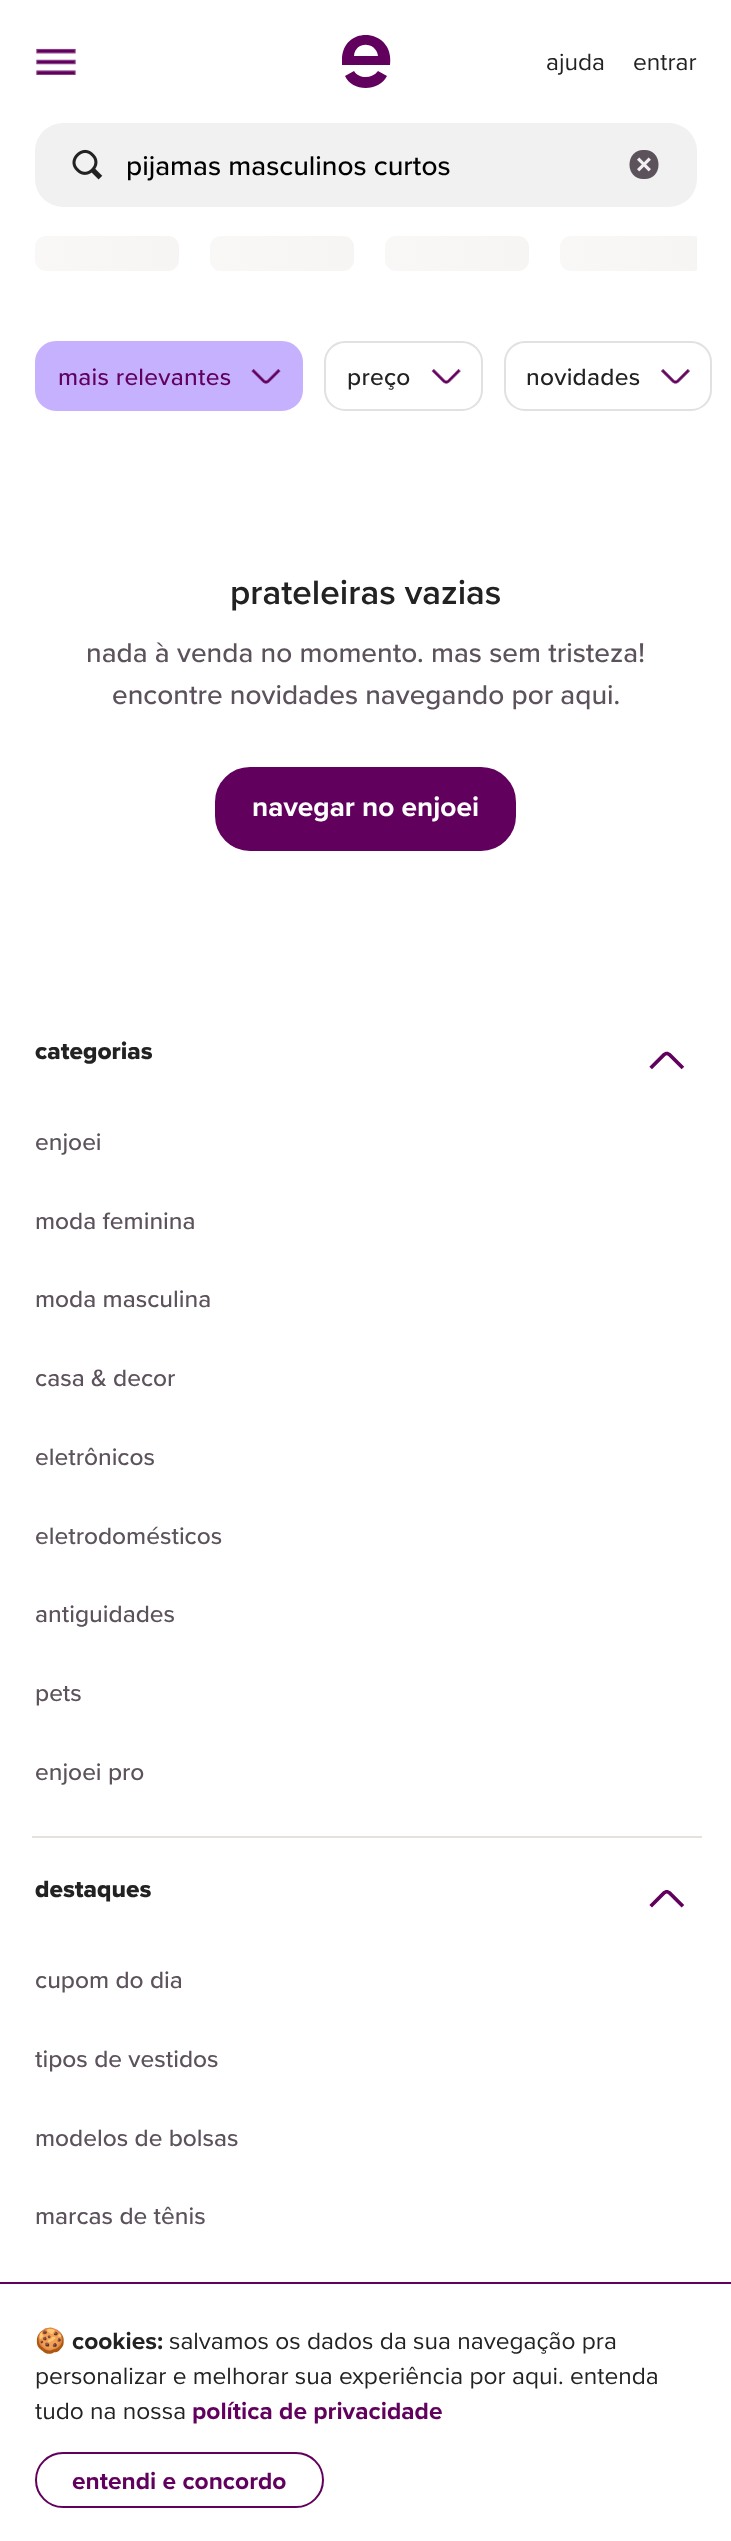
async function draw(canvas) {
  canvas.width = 731
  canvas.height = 2541
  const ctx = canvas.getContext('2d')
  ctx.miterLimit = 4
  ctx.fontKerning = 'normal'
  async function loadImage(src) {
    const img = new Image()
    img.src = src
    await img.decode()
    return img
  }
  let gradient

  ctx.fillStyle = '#fff'
  ctx.fillRect(0, 0, 731, 2541)
  ctx.drawImage(await loadImage('image0.png'), 36, 48, 40, 27)
  ctx.fillStyle = '#61005d'
  ctx.beginPath()
  ctx.moveTo(342, 60)
  ctx.bezierCurveTo(342, 24, 395, 28, 390, 65)
  ctx.lineTo(342, 65)
  ctx.lineTo(342, 60)
  ctx.moveTo(378, 56)
  ctx.bezierCurveTo(376, 41, 355, 41, 354, 56)
  ctx.closePath()
  ctx.moveTo(354, 71)
  ctx.bezierCurveTo(359, 79, 372, 79, 378, 71)
  ctx.lineTo(387, 76)
  ctx.bezierCurveTo(379, 92, 352, 92, 345, 76)
  ctx.closePath()
  ctx.fill('evenodd')
  ctx.font = '24.5px Proxima Nova'
  ctx.fillStyle = '#222'
  ctx.fillText('ajuda', 546, 70)
  ctx.fillText('entrar', 633, 70)
  ctx.fillStyle = '#f1f1f1'
  ctx.beginPath()
  ctx.roundRect(35, 123, 662, 84, 28)
  ctx.fill()
  ctx.drawImage(await loadImage('image1.png'), 72, 149, 31, 31)
  ctx.font = '500 28px Proxima Nova'
  ctx.fillStyle = '#000'
  ctx.fillText('pijamas masculinos curtos', 126, 175)
  ctx.drawImage(await loadImage('image2.png'), 629, 150, 30, 29)
  gradient = ctx.createLinearGradient(609, 306, 35, 306)
  gradient.addColorStop(0, '#f9f8f7')
  gradient.addColorStop(0.5, '#f4f2f0')
  gradient.addColorStop(1, '#f9f8f7')
  ctx.fillStyle = gradient
  ctx.beginPath()
  ctx.roundRect(35, 236, 144, 35, 11)
  ctx.fill()
  gradient = ctx.createLinearGradient(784, 306, 210, 306)
  gradient.addColorStop(0, '#f9f8f7')
  gradient.addColorStop(0.5, '#f4f2f0')
  gradient.addColorStop(1, '#f9f8f7')
  ctx.fillStyle = gradient
  ctx.beginPath()
  ctx.roundRect(210, 236, 144, 35, 11)
  ctx.fill()
  gradient = ctx.createLinearGradient(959, 306, 385, 306)
  gradient.addColorStop(0, '#f9f8f7')
  gradient.addColorStop(0.5, '#f4f2f0')
  gradient.addColorStop(1, '#f9f8f7')
  ctx.fillStyle = gradient
  ctx.beginPath()
  ctx.roundRect(385, 236, 144, 35, 11)
  ctx.fill()
  ctx.save()
  ctx.beginPath()
  ctx.rect(35, 236, 662, 35)
  ctx.clip()
  gradient = ctx.createLinearGradient(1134, 306, 560, 306)
  gradient.addColorStop(0, '#f9f8f7')
  gradient.addColorStop(0.5, '#f4f2f0')
  gradient.addColorStop(1, '#f9f8f7')
  ctx.fillStyle = gradient
  ctx.beginPath()
  ctx.roundRect(560, 236, 144, 35, 11)
  ctx.fill()
  ctx.restore()
  ctx.fillStyle = '#c6b1ff'
  ctx.beginPath()
  ctx.roundRect(36, 342, 266, 68, 20)
  ctx.fill()
  ctx.strokeStyle = '#c6b1ff'
  ctx.lineWidth = 2
  ctx.stroke()
  ctx.letterSpacing = '0.25px'
  ctx.font = '500 24.5px Proxima Nova'
  ctx.fillStyle = '#61005d'
  ctx.fillText('mais relevantes', 58, 385)
  ctx.drawImage(await loadImage('image3.png'), 251, 369, 30, 15)
  ctx.beginPath()
  ctx.roundRect(325, 342, 157, 68, 20)
  ctx.strokeStyle = '#e2e0e2'
  ctx.stroke()
  ctx.fillStyle = '#222'
  ctx.fillText('preço', 347, 385)
  ctx.drawImage(await loadImage('image4.png'), 431, 369, 30, 15)
  ctx.beginPath()
  ctx.roundRect(505, 342, 206, 68, 20)
  ctx.stroke()
  ctx.fillText('novidades', 526, 385)
  ctx.drawImage(await loadImage('image5.png'), 661, 369, 29, 15)
  ctx.letterSpacing = '0px'
  ctx.font = '600 35px Proxima Nova'
  ctx.fillText('prateleiras vazias', 230, 604)
  ctx.font = '500 28px Proxima Nova'
  ctx.fillStyle = '#5c525b'
  ctx.fillText('nada à venda no momento. mas sem tristeza!', 86, 662)
  ctx.fillText('encontre novidades navegando por aqui.', 112, 704)
  ctx.fillStyle = '#61005d'
  ctx.beginPath()
  ctx.roundRect(216, 768, 299, 82, 34)
  ctx.fill()
  ctx.strokeStyle = '#61005d'
  ctx.stroke()
  ctx.font = 'bold 28px Proxima Nova'
  ctx.fillStyle = '#fff'
  ctx.fillText('navegar no enjoei', 252, 816)
  ctx.fillStyle = '#61005d'
  ctx.fillRect(0, 2282, 731, 2)
  ctx.font = '24.5px Noto Color Emoji'
  ctx.fillStyle = '#222'
  ctx.fillText('🍪', 35, 2349)
  ctx.font = 'bold 24.5px Proxima Nova'
  ctx.fillText('cookies:', 72, 2349)
  ctx.font = '24.5px Proxima Nova'
  ctx.fillText('salvamos os dados da sua navegação pra', 169, 2349)
  ctx.fillText('personalizar e melhorar sua experiência por aqui. entenda', 35, 2384)
  ctx.fillText('tudo na nossa', 35, 2419)
  ctx.font = 'bold 24.5px Proxima Nova'
  ctx.fillStyle = '#61005d'
  ctx.fillText('política de privacidade', 192, 2419)
  ctx.beginPath()
  ctx.roundRect(36, 2453, 287, 54, 27)
  ctx.stroke()
  ctx.fillText('entendi e concordo', 72, 2489)
  ctx.fillStyle = '#e6e1dd'
  ctx.fillRect(32, 1836, 670, 2)
  ctx.font = '800 24.5px Proxima Nova'
  ctx.fillStyle = '#222'
  ctx.fillText('categorias', 35, 1059)
  ctx.drawImage(await loadImage('image6.png'), 649, 1051, 36, 19)
  ctx.font = '500 24.5px Proxima Nova'
  ctx.fillStyle = '#5c525b'
  ctx.fillText('enjoei', 35, 1150)
  ctx.fillText('moda feminina', 35, 1229)
  ctx.fillText('moda masculina', 35, 1307)
  ctx.fillText('casa & decor', 35, 1386)
  ctx.fillText('eletrônicos', 35, 1465)
  ctx.fillText('eletrodomésticos', 35, 1544)
  ctx.fillText('antiguidades', 35, 1622)
  ctx.fillText('pets', 35, 1701)
  ctx.fillText('enjoei pro', 35, 1780)
  ctx.font = '800 24.5px Proxima Nova'
  ctx.fillStyle = '#222'
  ctx.fillText('destaques', 35, 1897)
  ctx.drawImage(await loadImage('image7.png'), 649, 1890, 35, 18)
  ctx.font = '500 24.5px Proxima Nova'
  ctx.fillStyle = '#5c525b'
  ctx.fillText('cupom do dia', 35, 1988)
  ctx.fillText('tipos de vestidos', 35, 2067)
  ctx.fillText('modelos de bolsas', 35, 2146)
  ctx.fillText('marcas de tênis', 35, 2224)
}

draw(document.querySelector('canvas'))
